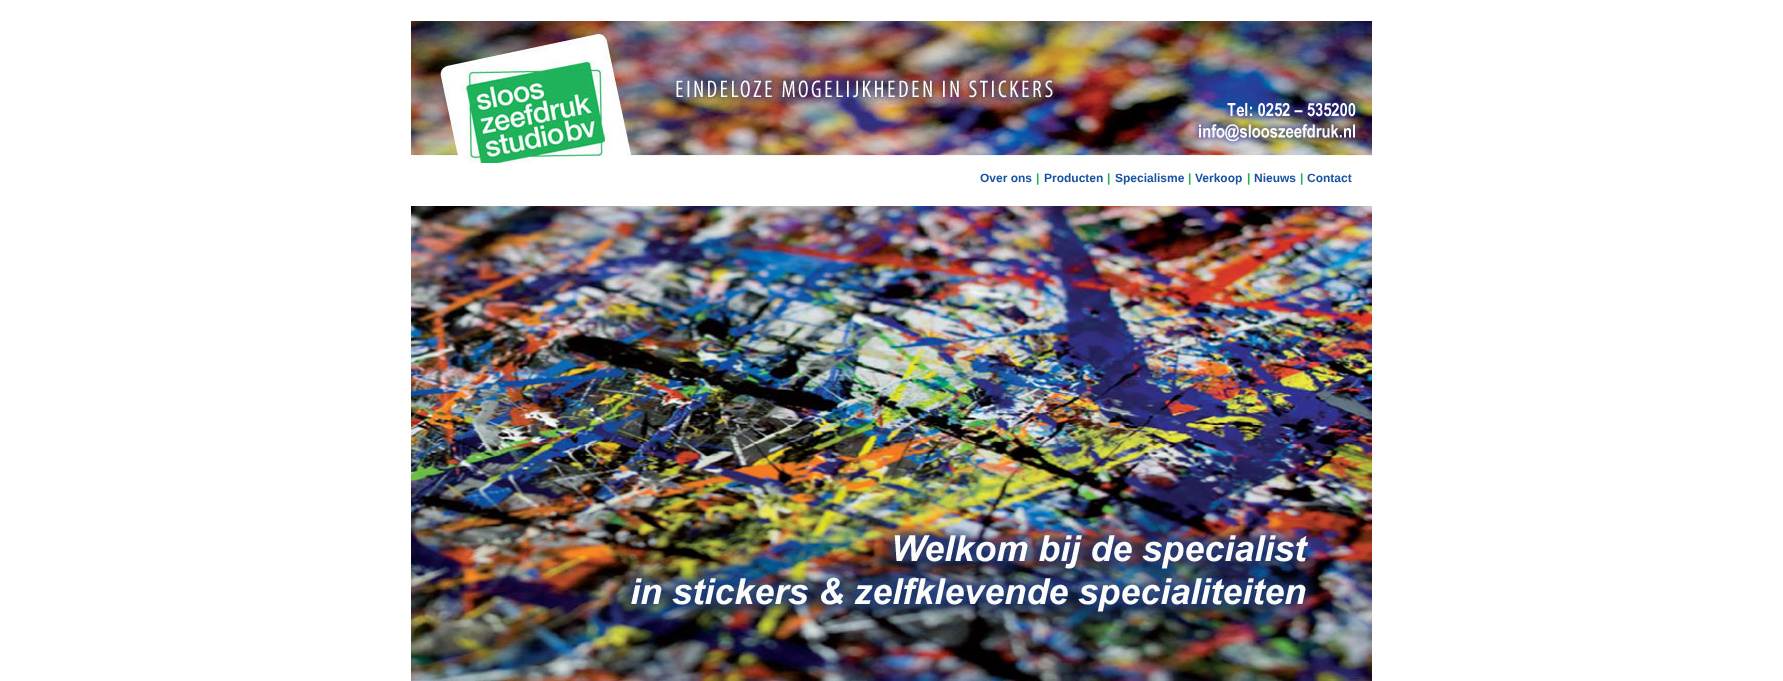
async function draw(canvas) {
  canvas.width = 1783
  canvas.height = 681
  const ctx = canvas.getContext('2d')
  ctx.miterLimit = 4
  ctx.fontKerning = 'normal'
  async function loadImage(src) {
    const img = new Image()
    img.src = src
    await img.decode()
    return img
  }

  ctx.fillStyle = '#fff'
  ctx.fillRect(0, 0, 1783, 681)
  ctx.drawImage(await loadImage('image0.png'), 411, 21, 961, 142)
  ctx.font = 'bold 12px Liberation Sans'
  ctx.fillStyle = '#1a53a1'
  ctx.fillText('Over ons', 980, 182)
  ctx.fillStyle = '#1fb25a'
  ctx.fillText('|', 1036, 182)
  ctx.fillStyle = '#1a53a1'
  ctx.fillText('Producten', 1044, 182)
  ctx.fillStyle = '#1fb25a'
  ctx.fillText('|', 1107, 182)
  ctx.fillStyle = '#1a53a1'
  ctx.fillText('Specialisme', 1115, 182)
  ctx.fillStyle = '#1fb25a'
  ctx.fillText('|', 1188, 182)
  ctx.fillStyle = '#1a53a1'
  ctx.fillText('Verkoop', 1195, 182)
  ctx.fillStyle = '#1fb25a'
  ctx.fillText('|', 1247, 182)
  ctx.fillStyle = '#1a53a1'
  ctx.fillText('Nieuws', 1254, 182)
  ctx.fillStyle = '#1fb25a'
  ctx.fillText('|', 1300, 182)
  ctx.fillStyle = '#1a53a1'
  ctx.fillText('Contact', 1307, 182)
  ctx.drawImage(await loadImage('image1.png'), 411, 206, 961, 475)
}

draw(document.querySelector('canvas'))
